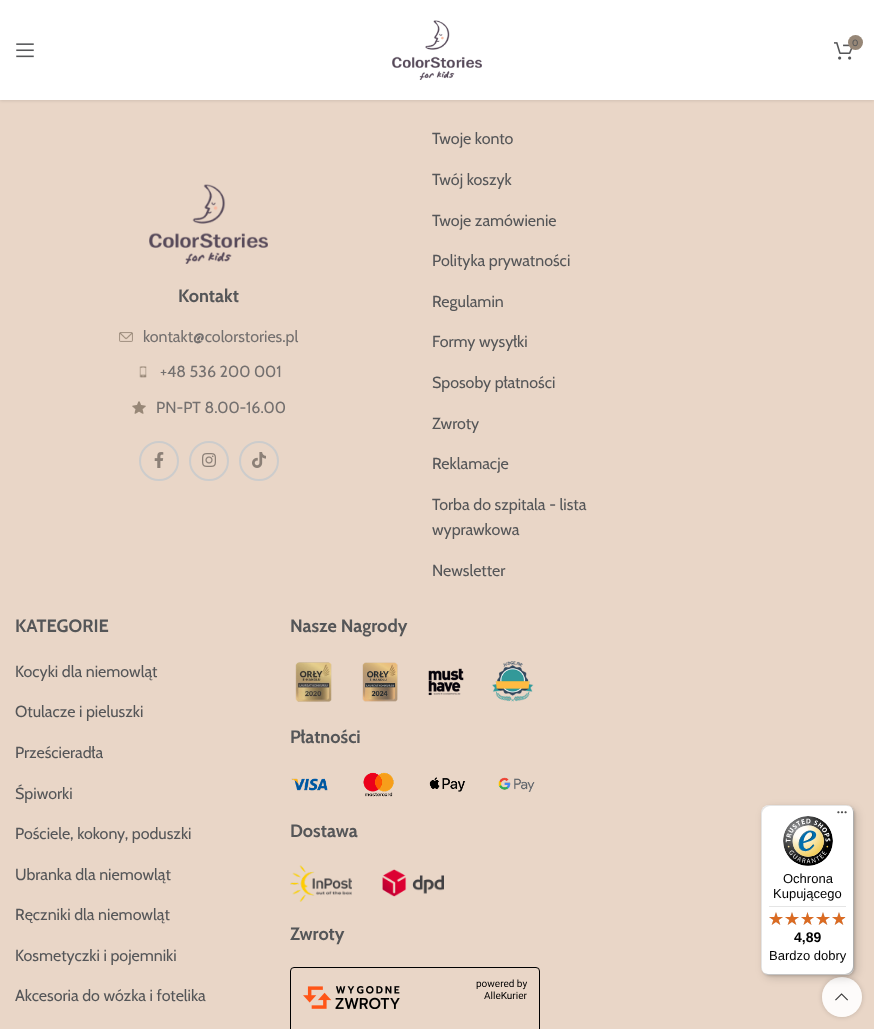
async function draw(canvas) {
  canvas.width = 874
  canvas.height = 1029
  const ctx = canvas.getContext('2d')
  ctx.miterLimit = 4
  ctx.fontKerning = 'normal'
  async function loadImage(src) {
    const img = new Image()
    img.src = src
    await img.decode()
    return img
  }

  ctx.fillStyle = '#e9d6c7'
  ctx.fillRect(0, 0, 874, 1029)
  ctx.fillStyle = '#0000001a'
  ctx.filter = 'blur(1.5px)'
  ctx.beginPath()
  ctx.rect(0, 1, 874, 100)
  ctx.fill()
  ctx.filter = 'none'
  ctx.fillStyle = '#fff'
  ctx.fillRect(0, 0, 874, 100)
  ctx.drawImage(await loadImage('image0.png'), 16, 43, 18, 15)
  ctx.drawImage(await loadImage('image1.png'), 392, 20, 90, 60)
  ctx.drawImage(await loadImage('image2.png'), 834, 42, 19, 18)
  ctx.fillStyle = '#978777'
  ctx.beginPath()
  ctx.arc(855.5, 42.5, 7.5, 0, 2 * Math.PI)
  ctx.fill()
  ctx.font = '9px Cabin'
  ctx.fillStyle = '#555658'
  ctx.fillText('0', 852, 46)
  ctx.drawImage(await loadImage('image3.png'), 149, 184, 119, 80)
  ctx.font = 'bold 18px Cabin'
  ctx.fillText('Kontakt', 178, 302)
  ctx.drawImage(await loadImage('image4.png'), 119, 332, 14, 10)
  ctx.font = '16px Cabin'
  ctx.fillStyle = '#74706f'
  ctx.fillText('kontakt@colorstories.pl', 143, 342)
  ctx.drawImage(await loadImage('image5.png'), 139, 366, 8, 12)
  ctx.fillText('+48 536 200 001', 160, 377)
  ctx.drawImage(await loadImage('image6.png'), 132, 401, 14, 13)
  ctx.fillText('PN-PT 8.00-16.00', 156, 413)
  ctx.beginPath()
  ctx.arc(159, 461, 19, 0, 2 * Math.PI)
  ctx.strokeStyle = '#ccc'
  ctx.lineWidth = 2
  ctx.stroke()
  ctx.drawImage(await loadImage('image7.png'), 154, 452, 10, 16)
  ctx.beginPath()
  ctx.arc(209, 461, 19, 0, 2 * Math.PI)
  ctx.stroke()
  ctx.drawImage(await loadImage('image8.png'), 202, 453, 14, 14)
  ctx.beginPath()
  ctx.arc(259, 461, 19, 0, 2 * Math.PI)
  ctx.stroke()
  ctx.drawImage(await loadImage('image9.png'), 252, 452, 14, 16)
  ctx.fillStyle = '#555658'
  ctx.fillText('Twoje konto', 432, 144)
  ctx.fillText('Twój koszyk', 432, 185)
  ctx.fillText('Twoje zamówienie', 432, 226)
  ctx.fillText('Polityka prywatności', 432, 266)
  ctx.fillText('Regulamin', 432, 307)
  ctx.fillText('Formy wysyłki', 432, 347)
  ctx.fillText('Sposoby płatności', 432, 388)
  ctx.fillText('Zwroty', 432, 429)
  ctx.fillText('Reklamacje', 432, 469)
  ctx.fillText('Torba do szpitala - lista', 432, 510)
  ctx.fillText('wyprawkowa', 432, 535)
  ctx.fillText('Newsletter', 432, 576)
  ctx.font = 'bold 18px Cabin'
  ctx.fillText('KATEGORIE', 15, 632)
  ctx.font = '16px Cabin'
  ctx.fillText('Kocyki dla niemowląt', 15, 677)
  ctx.fillText('Otulacze i pieluszki', 15, 717)
  ctx.fillText('Prześcieradła', 15, 758)
  ctx.fillText('Śpiworki', 15, 799)
  ctx.fillText('Pościele, kokony, poduszki', 15, 839)
  ctx.fillText('Ubranka dla niemowląt', 15, 880)
  ctx.fillText('Ręczniki dla niemowląt', 15, 920)
  ctx.fillText('Kosmetyczki i pojemniki', 15, 961)
  ctx.fillText('Akcesoria do wózka i fotelika', 15, 1001)
  ctx.font = 'bold 18px Cabin'
  ctx.fillText('Nasze Nagrody', 290, 632)
  ctx.drawImage(await loadImage('image10.png'), 295, 662, 37, 40)
  ctx.drawImage(await loadImage('image11.png'), 362, 662, 36, 40)
  ctx.drawImage(await loadImage('image12.png'), 428, 668, 36, 28)
  ctx.drawImage(await loadImage('image13.png'), 492, 661, 42, 41)
  ctx.fillText('Płatności', 290, 743)
  ctx.drawImage(await loadImage('image14.png'), 291, 778, 37, 13)
  ctx.drawImage(await loadImage('image15.png'), 363, 772, 31, 25)
  ctx.drawImage(await loadImage('image16.png'), 429, 777, 37, 15)
  ctx.drawImage(await loadImage('image17.png'), 498, 777, 37, 15)
  ctx.fillText('Dostawa', 290, 837)
  ctx.drawImage(await loadImage('image18.png'), 290, 865, 62, 37)
  ctx.drawImage(await loadImage('image19.png'), 382, 869, 62, 28)
  ctx.fillText('Zwroty', 290, 940)
  ctx.beginPath()
  ctx.roundRect(290.5, 967.5, 249, 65, 3.5)
  ctx.strokeStyle = '#000'
  ctx.lineWidth = 1
  ctx.stroke()
  ctx.drawImage(await loadImage('image20.png'), 303, 986, 97, 23)
  ctx.font = '10px Roboto'
  ctx.fillStyle = '#000'
  ctx.fillText('powered by', 476, 987)
  ctx.fillText('AlleKurier', 484, 999)
  ctx.save()
  ctx.beginPath()
  ctx.moveTo(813, 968)
  ctx.lineTo(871, 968)
  ctx.lineTo(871, 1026)
  ctx.lineTo(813, 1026)
  ctx.closePath()
  ctx.moveTo(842, 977)
  ctx.bezierCurveTo(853, 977, 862, 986, 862, 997)
  ctx.bezierCurveTo(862, 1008, 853, 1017, 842, 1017)
  ctx.bezierCurveTo(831, 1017, 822, 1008, 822, 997)
  ctx.bezierCurveTo(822, 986, 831, 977, 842, 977)
  ctx.closePath()
  ctx.clip('evenodd')
  ctx.fillStyle = '#0000002b'
  ctx.filter = 'blur(2.5px)'
  ctx.beginPath()
  ctx.roundRect(822, 977, 40, 40, 20)
  ctx.fill()
  ctx.filter = 'none'
  ctx.restore()
  ctx.fillStyle = '#ffffffe6'
  ctx.beginPath()
  ctx.arc(842, 997, 20, 0, 2 * Math.PI)
  ctx.fill()
  ctx.fillStyle = '#00000026'
  ctx.filter = 'blur(4px)'
  ctx.beginPath()
  ctx.roundRect(764, 808, 93, 170, 8)
  ctx.fill()
  ctx.filter = 'none'
  ctx.filter = 'blur(1px)'
  ctx.beginPath()
  ctx.roundRect(762, 806, 93, 170, 8)
  ctx.fill()
  ctx.filter = 'none'
  ctx.fillStyle = '#fff'
  ctx.beginPath()
  ctx.roundRect(761, 805, 93, 170, 8)
  ctx.fill()
  ctx.fillStyle = '#0000001a'
  ctx.beginPath()
  ctx.moveTo(770, 806)
  ctx.lineTo(847, 806)
  ctx.bezierCurveTo(849, 806, 851, 807, 853, 809)
  ctx.bezierCurveTo(851, 807, 849, 805, 846, 805)
  ctx.lineTo(769, 805)
  ctx.bezierCurveTo(765, 805, 761, 809, 761, 813)
  ctx.lineTo(761, 967)
  ctx.bezierCurveTo(761, 970, 763, 972, 765, 974)
  ctx.bezierCurveTo(763, 972, 762, 970, 762, 968)
  ctx.lineTo(762, 814)
  ctx.bezierCurveTo(762, 810, 766, 806, 770, 806)
  ctx.closePath()
  ctx.fill()
  ctx.fillStyle = '#00000033'
  ctx.beginPath()
  ctx.moveTo(762, 971)
  ctx.bezierCurveTo(764, 973, 766, 975, 769, 975)
  ctx.lineTo(846, 975)
  ctx.bezierCurveTo(850, 975, 854, 971, 854, 967)
  ctx.lineTo(854, 813)
  ctx.bezierCurveTo(854, 810, 852, 808, 850, 806)
  ctx.bezierCurveTo(852, 808, 853, 810, 853, 812)
  ctx.lineTo(853, 966)
  ctx.bezierCurveTo(853, 970, 849, 974, 845, 974)
  ctx.lineTo(768, 974)
  ctx.bezierCurveTo(766, 974, 764, 973, 762, 971)
  ctx.closePath()
  ctx.fill()
  ctx.fillStyle = '#32323233'
  ctx.beginPath()
  ctx.moveTo(763, 972)
  ctx.bezierCurveTo(764, 974, 767, 975, 769, 975)
  ctx.lineTo(846, 975)
  ctx.bezierCurveTo(850, 975, 854, 971, 854, 967)
  ctx.lineTo(854, 813)
  ctx.bezierCurveTo(854, 811, 853, 808, 851, 807)
  ctx.bezierCurveTo(852, 808, 853, 810, 853, 812)
  ctx.lineTo(853, 966)
  ctx.bezierCurveTo(853, 971, 850, 974, 845, 974)
  ctx.lineTo(768, 974)
  ctx.bezierCurveTo(766, 974, 764, 973, 763, 972)
  ctx.closePath()
  ctx.fill()
  ctx.drawImage(await loadImage('image21.png'), 837, 811, 10, 3)
  ctx.fillStyle = '#ffffff4d'
  ctx.beginPath()
  ctx.moveTo(763, 972)
  ctx.bezierCurveTo(764, 974, 767, 975, 769, 975)
  ctx.lineTo(846, 975)
  ctx.bezierCurveTo(850, 975, 854, 971, 854, 967)
  ctx.lineTo(854, 966)
  ctx.bezierCurveTo(854, 971, 850, 974, 846, 974)
  ctx.lineTo(768, 974)
  ctx.bezierCurveTo(766, 974, 764, 973, 763, 972)
  ctx.closePath()
  ctx.fill()
  ctx.drawImage(await loadImage('image22.png'), 783, 816, 50, 50)
  ctx.font = '13px Liberation Sans'
  ctx.fillStyle = '#000'
  ctx.fillText('Ochrona', 783, 883)
  ctx.fillText('Kupującego', 773, 898)
  ctx.fillStyle = '#e5e5e5'
  ctx.fillRect(769, 906, 77, 1)
  ctx.drawImage(await loadImage('image23.png'), 769, 912, 14, 13)
  ctx.drawImage(await loadImage('image23.png'), 785, 912, 14, 13)
  ctx.drawImage(await loadImage('image24.png'), 801, 912, 13, 13)
  ctx.drawImage(await loadImage('image23.png'), 816, 912, 14, 13)
  ctx.drawImage(await loadImage('image23.png'), 832, 912, 14, 13)
  ctx.drawImage(await loadImage('image25.png'), 769, 912, 14, 13)
  ctx.drawImage(await loadImage('image25.png'), 785, 912, 14, 13)
  ctx.drawImage(await loadImage('image26.png'), 801, 912, 13, 13)
  ctx.drawImage(await loadImage('image25.png'), 816, 912, 14, 13)
  ctx.drawImage(await loadImage('image27.png'), 832, 912, 13, 13)
  ctx.font = 'bold 14px Liberation Sans'
  ctx.fillStyle = '#000'
  ctx.fillText('4,89', 794, 942)
  ctx.font = '13px Liberation Sans'
  ctx.fillText('Bardzo dobry', 769, 960)
  ctx.drawImage(await loadImage('image28.png'), 835, 993, 13, 8)
}

draw(document.querySelector('canvas'))
